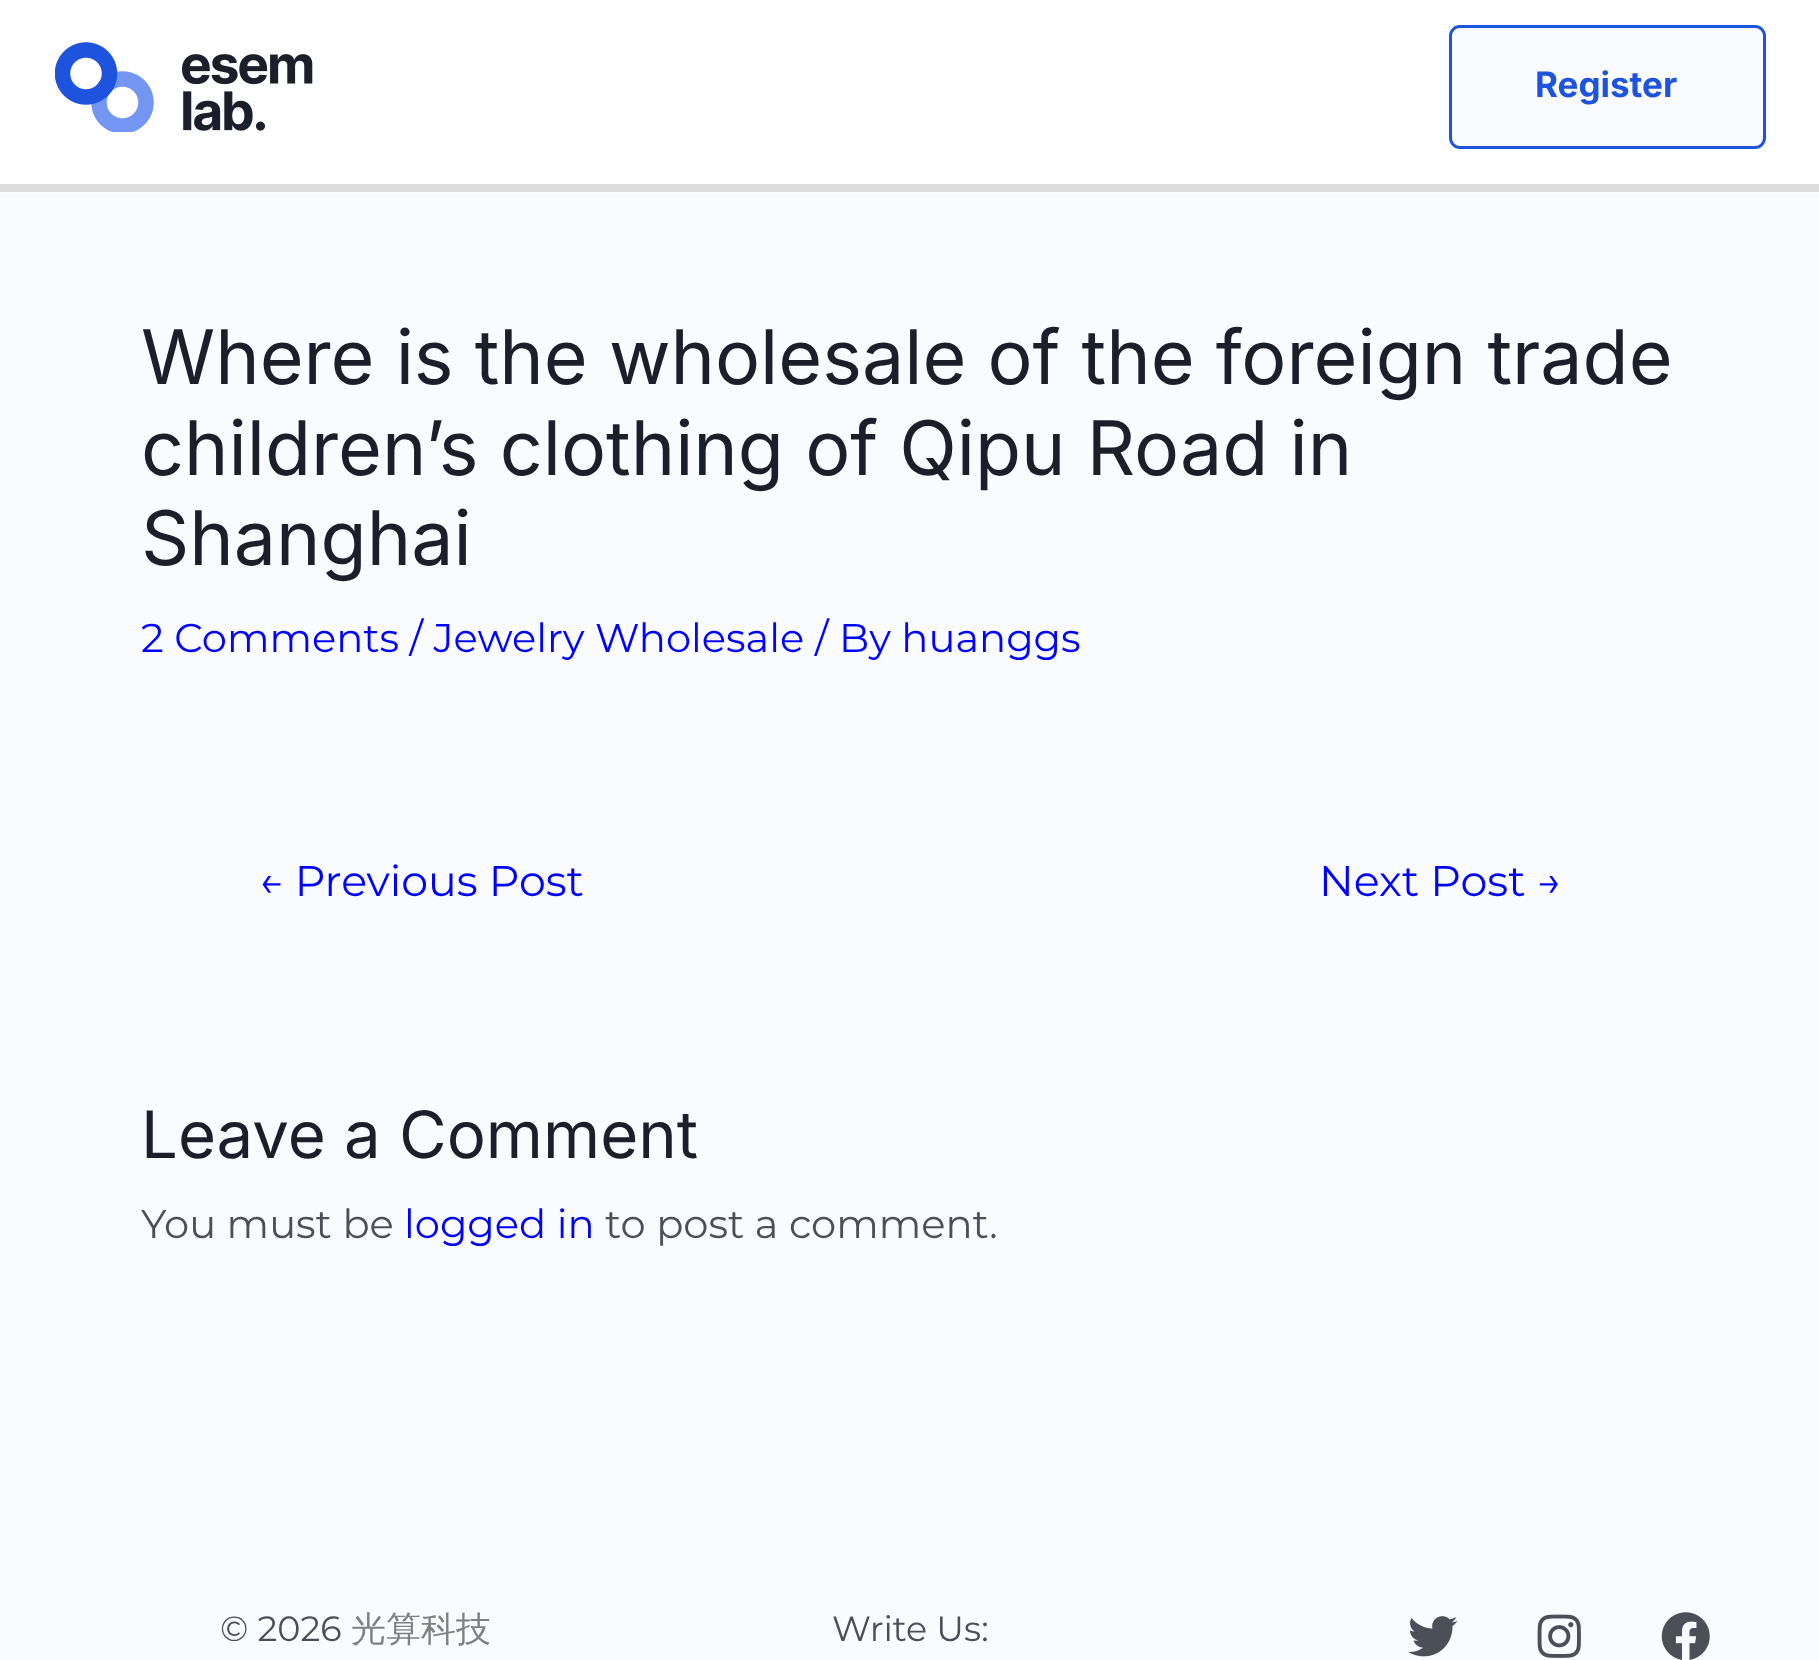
async function draw(canvas) {
  canvas.width = 1819
  canvas.height = 1660
  const ctx = canvas.getContext('2d')
  ctx.miterLimit = 4
  ctx.fontKerning = 'normal'
  async function loadImage(src) {
    const img = new Image()
    img.src = src
    await img.decode()
    return img
  }

  ctx.fillStyle = '#f9fbff'
  ctx.fillRect(0, 0, 1819, 1660)
  ctx.fillStyle = '#fff'
  ctx.fillRect(0, 0, 1819, 193)
  ctx.fillStyle = '#ddd'
  ctx.fillRect(0, 184, 1819, 8)
  ctx.drawImage(await loadImage('image0.png'), 55, 42, 258, 90)
  ctx.fillStyle = '#f9fbff'
  ctx.beginPath()
  ctx.roundRect(1450.5, 26.5, 314, 121, 9.5)
  ctx.fill()
  ctx.strokeStyle = '#1d53dd'
  ctx.lineWidth = 3
  ctx.stroke()
  ctx.font = 'bold 35px Inter'
  ctx.fillStyle = '#1d53dd'
  ctx.fillText('Register', 1535, 97)
  ctx.font = '75.25px Inter'
  ctx.fillStyle = '#1b1f29'
  ctx.fillText('Where is the wholesale of the foreign trade', 141, 384)
  ctx.fillText('children’s clothing of Qipu Road in', 141, 475)
  ctx.fillText('Shanghai', 141, 565)
  ctx.font = '40.1px Montserrat'
  ctx.fillStyle = '#0004fe'
  ctx.fillText('2 Comments / Jewelry Wholesale', 141, 652)
  ctx.fillText('/ By huanggs', 815, 652)
  ctx.font = '42.75px Montserrat'
  ctx.fillText('← Previous Post', 258, 896)
  ctx.fillText('Next Post →', 1319, 896)
  ctx.font = '65.25px Inter'
  ctx.fillStyle = '#1b1f29'
  ctx.fillText('Leave a Comment', 141, 1158)
  ctx.font = '40.1px Montserrat'
  ctx.fillStyle = '#4b4f58'
  ctx.fillText('You must be', 141, 1238)
  ctx.fillStyle = '#0004fe'
  ctx.fillText('logged in', 404, 1238)
  ctx.fillStyle = '#4b4f58'
  ctx.fillText('to post a comment.', 605, 1238)
  ctx.font = '35px Montserrat'
  ctx.fillText('© 2026', 220, 1641)
  ctx.font = '500 35px WenQuanYi Zen Hei'
  ctx.fillStyle = '#808080'
  ctx.fillText('光算科技', 351, 1641)
  ctx.font = '35px Montserrat'
  ctx.fillStyle = '#4b4f58'
  ctx.fillText('Write Us:', 832, 1641)
  ctx.drawImage(await loadImage('image1.png'), 1408, 1616, 50, 41)
  ctx.drawImage(await loadImage('image2.png'), 1537, 1614, 44, 44)
  ctx.drawImage(await loadImage('image3.png'), 1661, 1612, 49, 48)
}

draw(document.querySelector('canvas'))
